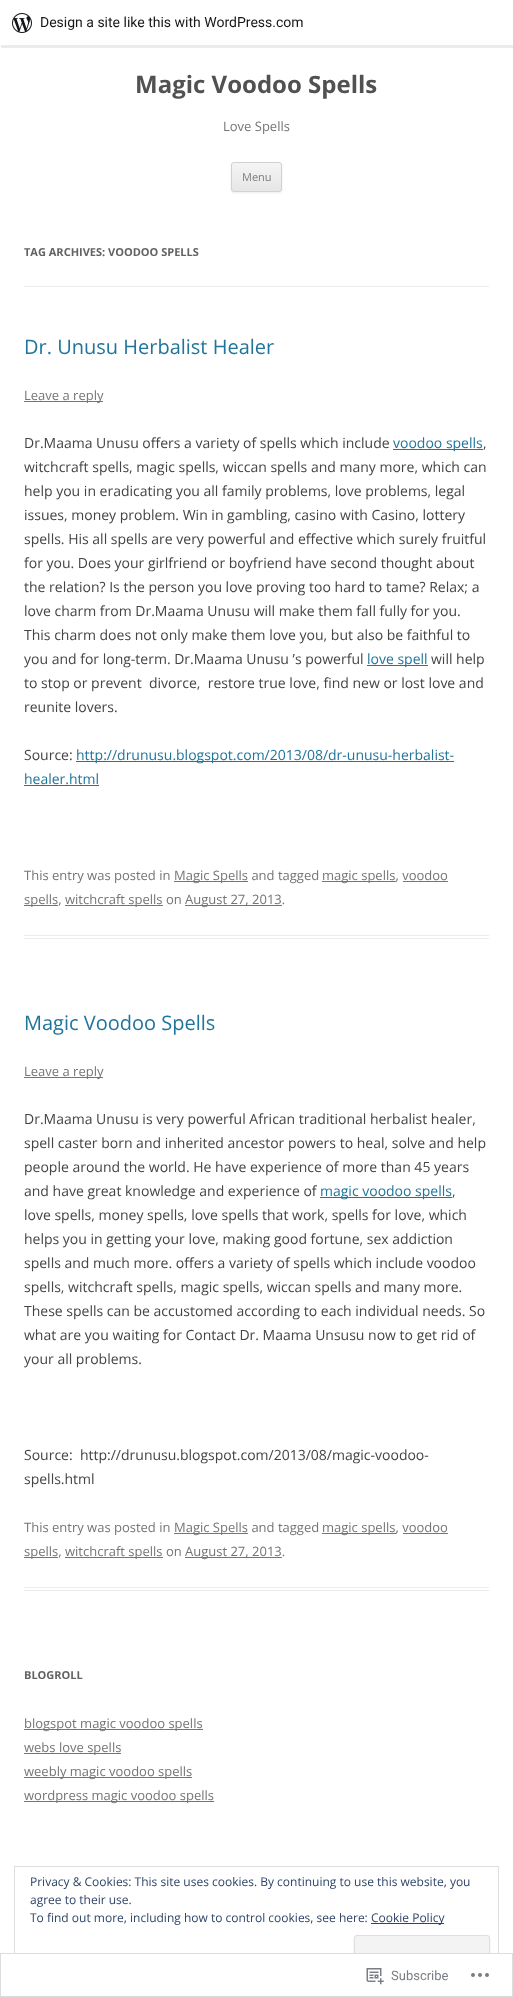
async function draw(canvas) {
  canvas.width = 513
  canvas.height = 1997
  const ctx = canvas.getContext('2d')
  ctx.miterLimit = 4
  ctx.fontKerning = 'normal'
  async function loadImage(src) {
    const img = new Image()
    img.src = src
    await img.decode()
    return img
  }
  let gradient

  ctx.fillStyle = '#fff'
  ctx.fillRect(0, 0, 513, 1997)
  ctx.fillStyle = '#00000014'
  ctx.beginPath()
  ctx.moveTo(1, 45)
  ctx.lineTo(1, 48)
  ctx.lineTo(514, 48)
  ctx.lineTo(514, 3)
  ctx.lineTo(513, 3)
  ctx.lineTo(513, 45)
  ctx.closePath()
  ctx.fill()
  ctx.drawImage(await loadImage('image0.png'), 12, 13, 20, 20)
  ctx.font = '14px Roboto'
  ctx.fillStyle = '#171717'
  ctx.fillText('Design a site like this with WordPress.com', 40, 27)
  ctx.font = 'bold 24px Open Sans'
  ctx.fillStyle = '#515151'
  ctx.fillText('Magic Voodoo Spells', 135, 93)
  ctx.font = '13px Open Sans'
  ctx.fillStyle = '#757575'
  ctx.fillText('Love Spells', 223, 131)
  ctx.fillStyle = '#4040401a'
  ctx.filter = 'blur(1px)'
  ctx.beginPath()
  ctx.roundRect(231, 163, 51, 30, 3)
  ctx.fill()
  ctx.filter = 'none'
  ctx.save()
  ctx.beginPath()
  ctx.roundRect(231, 162, 51, 30, 3)
  ctx.clip()
  gradient = ctx.createLinearGradient(257, 163, 257, 191)
  gradient.addColorStop(0, '#f4f4f4')
  gradient.addColorStop(1, '#e6e6e6')
  ctx.fillStyle = gradient
  ctx.fillRect(231, 163, 51, 28)
  ctx.restore()
  ctx.beginPath()
  ctx.roundRect(231.5, 162.5, 50, 29, 2.5)
  ctx.strokeStyle = '#d2d2d2'
  ctx.stroke()
  ctx.font = '11px Open Sans'
  ctx.fillStyle = '#7c7c7c'
  ctx.fillText('Menu', 242, 181)
  ctx.fillStyle = '#ededed'
  ctx.fillRect(24, 286, 465, 1)
  ctx.font = 'bold 11px Open Sans'
  ctx.fillStyle = '#636363'
  ctx.fillText('TAG ARCHIVES: VOODOO SPELLS', 24, 256)
  ctx.fillStyle = '#ededed'
  ctx.fillRect(24, 935, 465, 1)
  ctx.fillRect(24, 938, 465, 1)
  ctx.font = '20px Open Sans'
  ctx.fillStyle = '#21759b'
  ctx.fillText('Dr. Unusu Herbalist Healer', 24, 354)
  ctx.fillStyle = '#757575'
  ctx.fillRect(24, 401, 79, 1)
  ctx.font = '13px Open Sans'
  ctx.fillText('Leave a reply', 24, 400)
  ctx.font = '14px Open Sans'
  ctx.fillStyle = '#444'
  ctx.fillText('Dr.Maama Unusu offers a variety of spells which include', 24, 448)
  ctx.fillStyle = '#21759b'
  ctx.fillRect(393, 449, 90, 1)
  ctx.fillText('voodoo spells', 393, 448)
  ctx.fillStyle = '#444'
  ctx.fillText(',', 483, 448)
  ctx.fillText('witchcraft spells, magic spells, wiccan spells and many more, which can', 24, 472)
  ctx.fillText('help you in eradicating you all family problems, love problems, legal', 24, 496)
  ctx.fillText('issues, money problem. Win in gambling, casino with Casino, lottery', 24, 520)
  ctx.fillText('spells. His all spells are very powerful and effective which surely fruitful', 24, 544)
  ctx.fillText('for you. Does your girlfriend or boyfriend have second thought about', 24, 568)
  ctx.fillText('the relation? Is the person you love proving too hard to tame? Relax; a', 24, 592)
  ctx.fillText('love charm from Dr.Maama Unusu will make them fall fully for you.', 24, 616)
  ctx.fillText('This charm does not only make them love you, but also be faithful to', 24, 640)
  ctx.fillText('you and for long-term. Dr.Maama Unusu ’s powerful', 24, 664)
  ctx.fillStyle = '#21759b'
  ctx.fillRect(367, 665, 61, 1)
  ctx.fillText('love spell', 367, 664)
  ctx.fillStyle = '#444'
  ctx.fillText('will help', 431, 664)
  ctx.fillText('to stop or prevent  divorce,  restore true love, find new or lost love and', 24, 688)
  ctx.fillText('reunite lovers.', 24, 712)
  ctx.fillText('Source:', 24, 760)
  ctx.fillStyle = '#21759b'
  ctx.fillRect(76, 761, 378, 1)
  ctx.fillText('http://drunusu.blogspot.com/2013/08/dr-unusu-herbalist-', 76, 760)
  ctx.fillText('healer.html', 24, 784)
  ctx.fillRect(24, 785, 75, 1)
  ctx.font = '13px Open Sans'
  ctx.fillStyle = '#757575'
  ctx.fillText('This entry was posted in', 24, 880)
  ctx.fillRect(174, 881, 74, 1)
  ctx.fillText('Magic Spells and tagged', 174, 880)
  ctx.fillRect(322, 881, 74, 1)
  ctx.fillText('magic spells, voodoo', 322, 880)
  ctx.fillRect(24, 905, 34, 1)
  ctx.fillText('spells,', 24, 904)
  ctx.fillRect(403, 881, 45, 1)
  ctx.fillRect(65, 905, 98, 1)
  ctx.fillText('witchcraft spells on', 65, 904)
  ctx.fillRect(185, 905, 97, 1)
  ctx.fillText('August 27, 2013.', 185, 904)
  ctx.fillStyle = '#ededed'
  ctx.fillRect(24, 1587, 465, 1)
  ctx.fillRect(24, 1590, 465, 1)
  ctx.font = '20px Open Sans'
  ctx.fillStyle = '#21759b'
  ctx.fillText('Magic Voodoo Spells', 24, 1030)
  ctx.fillStyle = '#757575'
  ctx.fillRect(24, 1077, 79, 1)
  ctx.font = '13px Open Sans'
  ctx.fillText('Leave a reply', 24, 1076)
  ctx.font = '14px Open Sans'
  ctx.fillStyle = '#444'
  ctx.fillText('Dr.Maama Unusu is very powerful African traditional herbalist healer,', 24, 1124)
  ctx.fillText('spell caster born and inherited ancestor powers to heal, solve and help', 24, 1148)
  ctx.fillText('people around the world. He have experience of more than 45 years', 24, 1172)
  ctx.fillText('and have great knowledge and experience of', 24, 1196)
  ctx.fillStyle = '#21759b'
  ctx.fillRect(320, 1197, 132, 1)
  ctx.fillText('magic voodoo spells', 320, 1196)
  ctx.fillStyle = '#444'
  ctx.fillText(',', 452, 1196)
  ctx.fillText('love spells, money spells, love spells that work, spells for love, which', 24, 1220)
  ctx.fillText('helps you in getting your love, making good fortune, sex addiction', 24, 1244)
  ctx.fillText('spells and much more. offers a variety of spells which include voodoo', 24, 1268)
  ctx.fillText('spells, witchcraft spells, magic spells, wiccan spells and many more.', 24, 1292)
  ctx.fillText('These spells can be accustomed according to each individual needs. So', 24, 1316)
  ctx.fillText('what are you waiting for Contact Dr. Maama Unsusu now to get rid of', 24, 1340)
  ctx.fillText('your all problems.', 24, 1364)
  ctx.fillText('Source:  http://drunusu.blogspot.com/2013/08/magic-voodoo-', 24, 1460)
  ctx.fillText('spells.html', 24, 1484)
  ctx.font = '13px Open Sans'
  ctx.fillStyle = '#757575'
  ctx.fillText('This entry was posted in', 24, 1532)
  ctx.fillRect(174, 1533, 74, 1)
  ctx.fillText('Magic Spells and tagged', 174, 1532)
  ctx.fillRect(322, 1533, 74, 1)
  ctx.fillText('magic spells, voodoo', 322, 1532)
  ctx.fillRect(24, 1557, 34, 1)
  ctx.fillText('spells,', 24, 1556)
  ctx.fillRect(403, 1533, 45, 1)
  ctx.fillRect(65, 1557, 98, 1)
  ctx.fillText('witchcraft spells on', 65, 1556)
  ctx.fillRect(185, 1557, 97, 1)
  ctx.fillText('August 27, 2013.', 185, 1556)
  ctx.font = 'bold 11px Open Sans'
  ctx.fillStyle = '#636363'
  ctx.fillText('BLOGROLL', 24, 1679)
  ctx.fillStyle = '#757575'
  ctx.fillRect(24, 1729, 179, 1)
  ctx.font = '13px Open Sans'
  ctx.fillText('blogspot magic voodoo spells', 24, 1728)
  ctx.fillRect(24, 1753, 97, 1)
  ctx.fillText('webs love spells', 24, 1752)
  ctx.fillRect(24, 1777, 168, 1)
  ctx.fillText('weebly magic voodoo spells', 24, 1776)
  ctx.fillRect(24, 1801, 190, 1)
  ctx.fillText('wordpress magic voodoo spells', 24, 1800)
  ctx.strokeStyle = '#dedede'
  ctx.strokeRect(14.5, 1866.5, 484, 116)
  ctx.font = '12px Open Sans'
  ctx.fillStyle = '#2e4467'
  ctx.fillText('Privacy & Cookies: This site uses cookies. By continuing to use this website, you', 30, 1886)
  ctx.fillText('agree to their use.', 30, 1904)
  ctx.fillText('To find out more, including how to control cookies, see here:', 30, 1922)
  ctx.fillRect(371, 1923, 73, 1)
  ctx.fillText('Cookie Policy', 371, 1922)
  ctx.fillStyle = '#4040401a'
  ctx.filter = 'blur(1px)'
  ctx.beginPath()
  ctx.roundRect(354, 1936, 136, 39, 3)
  ctx.fill()
  ctx.filter = 'none'
  ctx.fillStyle = '#f3f3f3'
  ctx.beginPath()
  ctx.roundRect(354.5, 1935.5, 135, 38, 2.5)
  ctx.fill()
  ctx.stroke()
  ctx.fillStyle = '#fffffffa'
  ctx.fillRect(14, 1953, 485, 30)
  ctx.strokeStyle = '#dcdcdefa'
  ctx.strokeRect(0.5, 1953.5, 512, 43)
  ctx.drawImage(await loadImage('image1.png'), 366, 1968, 18, 17)
  ctx.font = '13px Roboto'
  ctx.fillStyle = '#7b7f84'
  ctx.fillText('Subscribe', 391, 1980)
  ctx.drawImage(await loadImage('image2.png'), 471, 1973, 18, 4)
}

draw(document.querySelector('canvas'))
